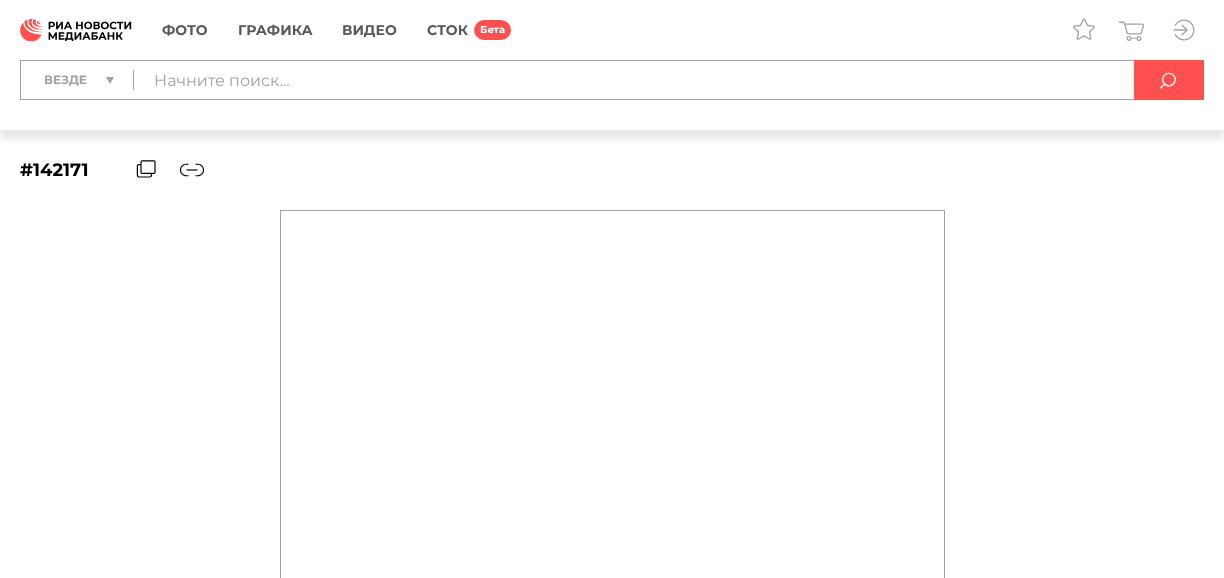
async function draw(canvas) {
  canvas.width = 1224
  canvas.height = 578
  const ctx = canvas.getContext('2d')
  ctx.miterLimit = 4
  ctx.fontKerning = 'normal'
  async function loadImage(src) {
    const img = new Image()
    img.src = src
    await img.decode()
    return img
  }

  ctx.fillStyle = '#fff'
  ctx.fillRect(0, 0, 1224, 578)
  ctx.save()
  ctx.beginPath()
  ctx.rect(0, 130, 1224, 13)
  ctx.clip()
  ctx.fillStyle = '#0000001a'
  ctx.filter = 'blur(5px)'
  ctx.beginPath()
  ctx.rect(0, 9, 1224, 130)
  ctx.fill()
  ctx.filter = 'none'
  ctx.restore()
  ctx.drawImage(await loadImage('image0.png'), 20, 19, 112, 22)
  ctx.font = 'bold 14px Montserrat'
  ctx.fillStyle = '#595959'
  ctx.fillText('ФОТО', 162, 35)
  ctx.fillText('ГРАФИКА', 238, 35)
  ctx.fillText('ВИДЕО', 342, 35)
  ctx.fillText('СТОК', 427, 35)
  ctx.fillStyle = '#ff5050'
  ctx.beginPath()
  ctx.roundRect(474, 20, 37, 20, 10)
  ctx.fill()
  ctx.font = 'bold 10px Montserrat'
  ctx.fillStyle = '#fff'
  ctx.fillText('Бета', 480, 33)
  ctx.drawImage(await loadImage('image1.png'), 1073, 18, 22, 22)
  ctx.drawImage(await loadImage('image2.png'), 1119, 21, 25, 20)
  ctx.drawImage(await loadImage('image3.png'), 1174, 19, 21, 22)
  ctx.fillStyle = '#a3a2a2'
  ctx.fillRect(20, 60, 1114, 1)
  ctx.fillRect(20, 99, 1114, 1)
  ctx.fillRect(20, 60, 1, 40)
  ctx.font = 'bold 12px Montserrat'
  ctx.fillText('ВЕЗДЕ', 44, 84)
  ctx.beginPath()
  ctx.moveTo(106, 77)
  ctx.lineTo(114, 77)
  ctx.lineTo(110, 84)
  ctx.closePath()
  ctx.fill()
  ctx.fillRect(133, 70, 1, 20)
  ctx.font = '16px Montserrat'
  ctx.fillText('Начните поиск...', 154, 86)
  ctx.fillStyle = '#ff5050'
  ctx.fillRect(1134, 60, 70, 40)
  ctx.drawImage(await loadImage('image4.png'), 1159, 72, 17, 17)
  ctx.font = 'bold 18px Montserrat'
  ctx.fillStyle = '#000'
  ctx.fillText('#142171', 20, 176)
  ctx.drawImage(await loadImage('image5.png'), 136, 160, 20, 18)
  ctx.drawImage(await loadImage('image6.png'), 179, 163, 26, 14)
  ctx.strokeStyle = '#a3a2a2'
  ctx.strokeRect(280.5, 210.5, 664, 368)
}

draw(document.querySelector('canvas'))
